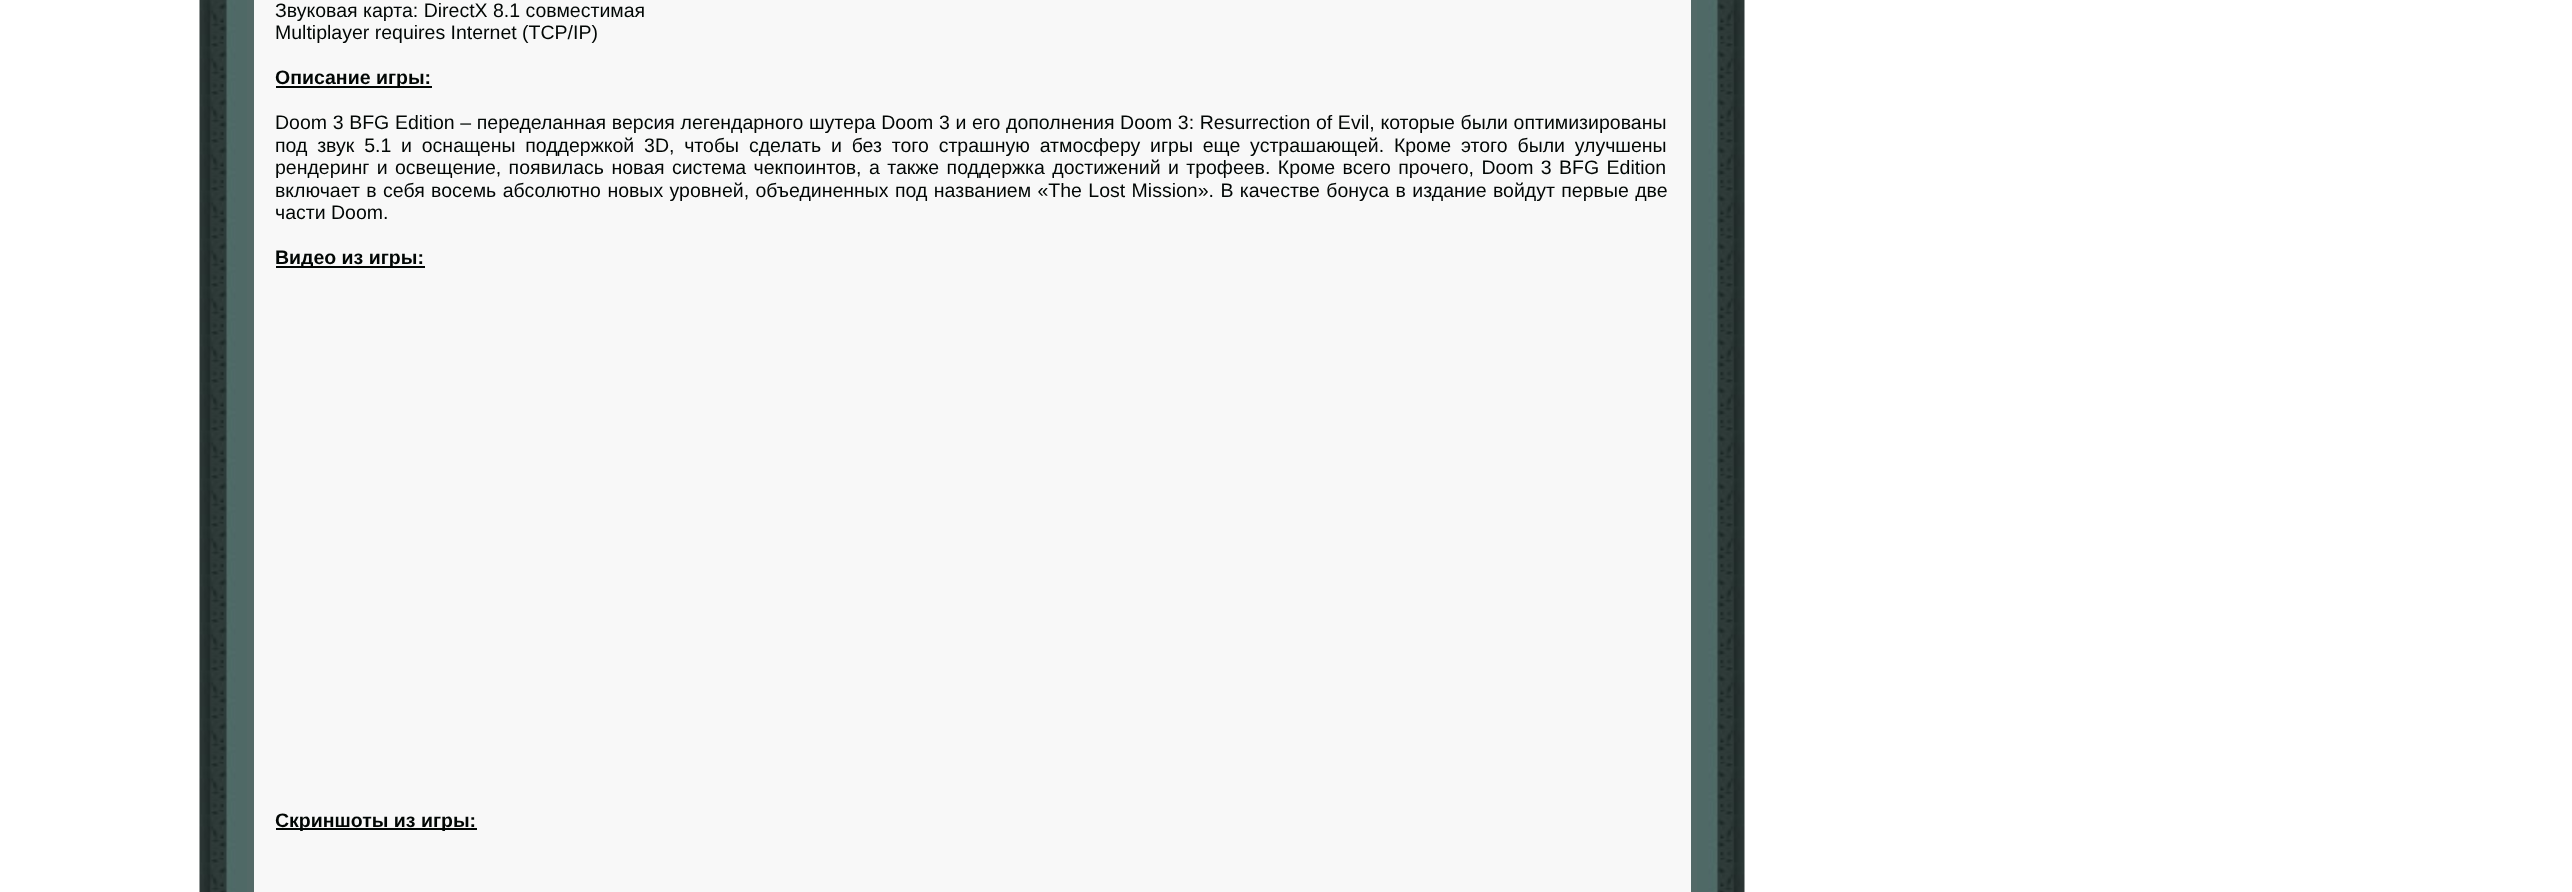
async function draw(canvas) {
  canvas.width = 2572
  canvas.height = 892
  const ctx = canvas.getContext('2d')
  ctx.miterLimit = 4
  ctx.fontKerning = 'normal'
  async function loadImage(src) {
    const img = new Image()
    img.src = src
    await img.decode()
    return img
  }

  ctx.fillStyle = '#fff'
  ctx.fillRect(0, 0, 2572, 892)
  ctx.drawImage(await loadImage('image0.png'), 199, 0, 48, 892)
  ctx.fillStyle = '#536967'
  ctx.fillRect(247, 0, 1450, 892)
  ctx.fillStyle = '#f8f8f8'
  ctx.fillRect(254, 0, 1437, 892)
  ctx.font = '19.5px Liberation Sans'
  ctx.fillStyle = '#010604'
  ctx.fillText('Звуковая карта: DirectX 8.1 совместимая', 275, 17)
  ctx.fillText('Multiplayer requires Internet (TCP/IP)', 275, 39)
  ctx.fillRect(276, 86, 156, 2)
  ctx.font = 'bold 19.5px Liberation Sans'
  ctx.fillText('Описание игры:', 275, 84)
  ctx.wordSpacing = '0.25px'
  ctx.font = '19.5px Liberation Sans'
  ctx.fillText('Doom 3 BFG Edition – переделанная версия легендарного шутера Doom 3 и его дополнения Doom 3: Resurrection of Evil, которые были оптимизированы', 275, 129)
  ctx.wordSpacing = '4.4px'
  ctx.fillText('под звук 5.1 и оснащены поддержкой 3D, чтобы сделать и без того страшную атмосферу игры еще устрашающей. Кроме этого были улучшены', 275, 152)
  ctx.wordSpacing = '2px'
  ctx.fillText('рендеринг и освещение, появилась новая система чекпоинтов, а также поддержка достижений и трофеев. Кроме всего прочего, Doom 3 BFG Edition', 275, 174)
  ctx.wordSpacing = '1px'
  ctx.fillText('включает в себя восемь абсолютно новых уровней, объединенных под названием «The Lost Mission». В качестве бонуса в издание войдут первые две', 275, 197)
  ctx.wordSpacing = '0px'
  ctx.fillText('части Doom.', 275, 219)
  ctx.fillRect(276, 266, 149, 2)
  ctx.font = 'bold 19.5px Liberation Sans'
  ctx.fillText('Видео из игры:', 275, 264)
  ctx.fillRect(276, 828, 201, 2)
  ctx.fillText('Скриншоты из игры:', 275, 827)
  ctx.drawImage(await loadImage('image1.png'), 1697, 0, 48, 892)
}

draw(document.querySelector('canvas'))
